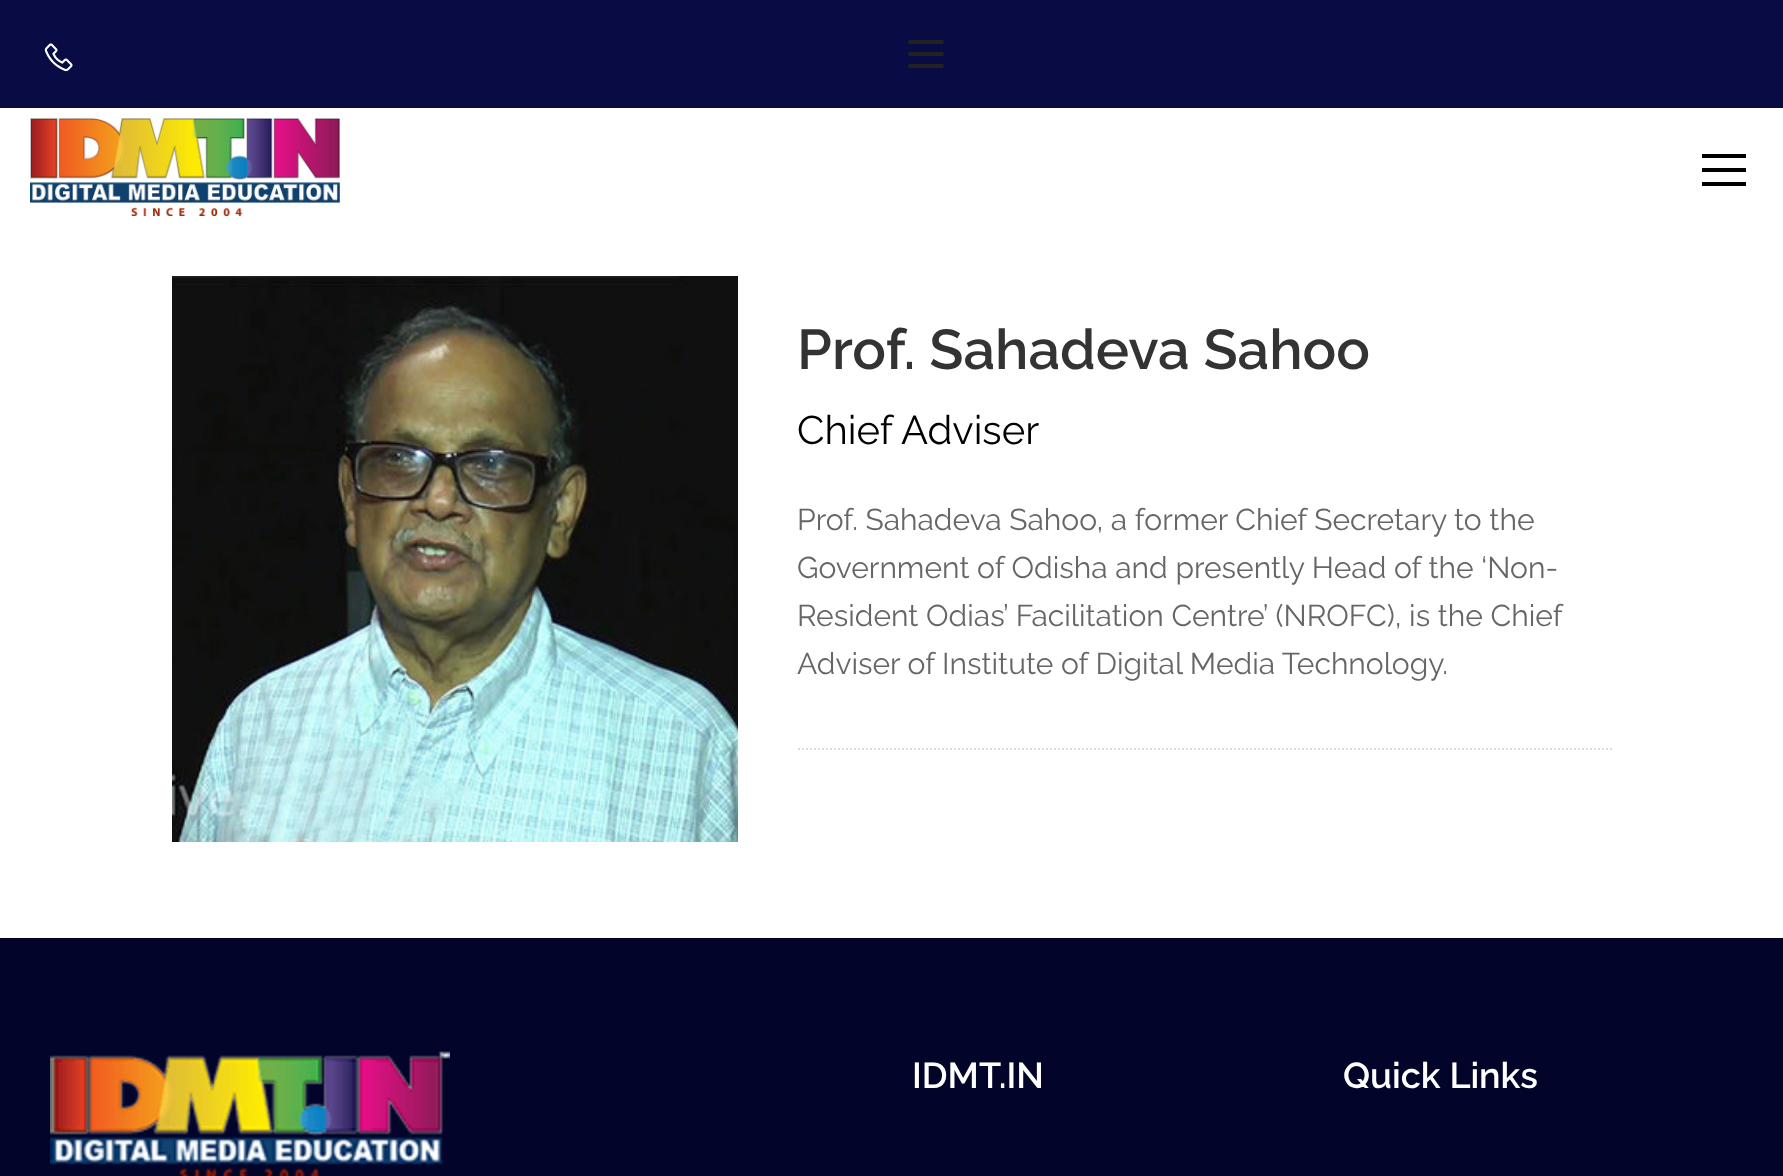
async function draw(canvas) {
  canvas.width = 1783
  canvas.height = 1176
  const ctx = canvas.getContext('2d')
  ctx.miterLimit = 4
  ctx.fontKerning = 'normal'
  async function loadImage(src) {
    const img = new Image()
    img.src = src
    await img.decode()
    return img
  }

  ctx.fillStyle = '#fff'
  ctx.fillRect(0, 0, 1783, 1176)
  ctx.fillStyle = '#090b44'
  ctx.fillRect(0, 0, 1783, 108)
  ctx.drawImage(await loadImage('image0.png'), 44, 43, 29, 29)
  ctx.beginPath()
  ctx.moveTo(910, 42)
  ctx.lineTo(942, 42)
  ctx.moveTo(910, 54)
  ctx.lineTo(942, 54)
  ctx.moveTo(910, 66)
  ctx.lineTo(942, 66)
  ctx.strokeStyle = '#222'
  ctx.lineWidth = 4
  ctx.lineCap = 'round'
  ctx.lineJoin = 'round'
  ctx.stroke()
  ctx.drawImage(await loadImage('image1.png'), 30, 118, 310, 98)
  ctx.fillStyle = '#000'
  ctx.fillRect(1702, 154, 44, 4)
  ctx.fillRect(1702, 168, 44, 4)
  ctx.fillRect(1702, 182, 44, 4)
  ctx.drawImage(await loadImage('image2.png'), 172, 276, 566, 566)
  ctx.font = '600 56px Raleway'
  ctx.fillStyle = '#333'
  ctx.fillText('Prof. Sahadeva Sahoo', 797, 369)
  ctx.font = '40px Raleway'
  ctx.fillStyle = '#000'
  ctx.fillText('Chief Adviser', 797, 444)
  ctx.font = '30px Raleway'
  ctx.fillStyle = '#666'
  ctx.fillText('Prof. Sahadeva Sahoo, a former Chief Secretary to the', 797, 530)
  ctx.fillText('Government of Odisha and presently Head of the ‘Non-', 797, 578)
  ctx.fillText('Resident Odias’ Facilitation Centre’ (NROFC), is the Chief', 797, 626)
  ctx.fillText('Adviser of Institute of Digital Media Technology.', 797, 674)
  ctx.beginPath()
  ctx.moveTo(798, 749)
  ctx.lineTo(1612, 749)
  ctx.strokeStyle = '#ddd'
  ctx.lineWidth = 2
  ctx.lineCap = 'butt'
  ctx.lineJoin = 'miter'
  ctx.setLineDash([2, 2])
  ctx.stroke()
  ctx.fillStyle = '#020429'
  ctx.fillRect(0, 938, 1783, 238)
  ctx.drawImage(await loadImage('image3.png'), 50, 1051, 400, 125)
  ctx.font = '600 36px Raleway'
  ctx.fillStyle = '#fff'
  ctx.fillText('IDMT.IN', 912, 1088)
  ctx.fillText('Quick Links', 1343, 1088)
}

draw(document.querySelector('canvas'))
